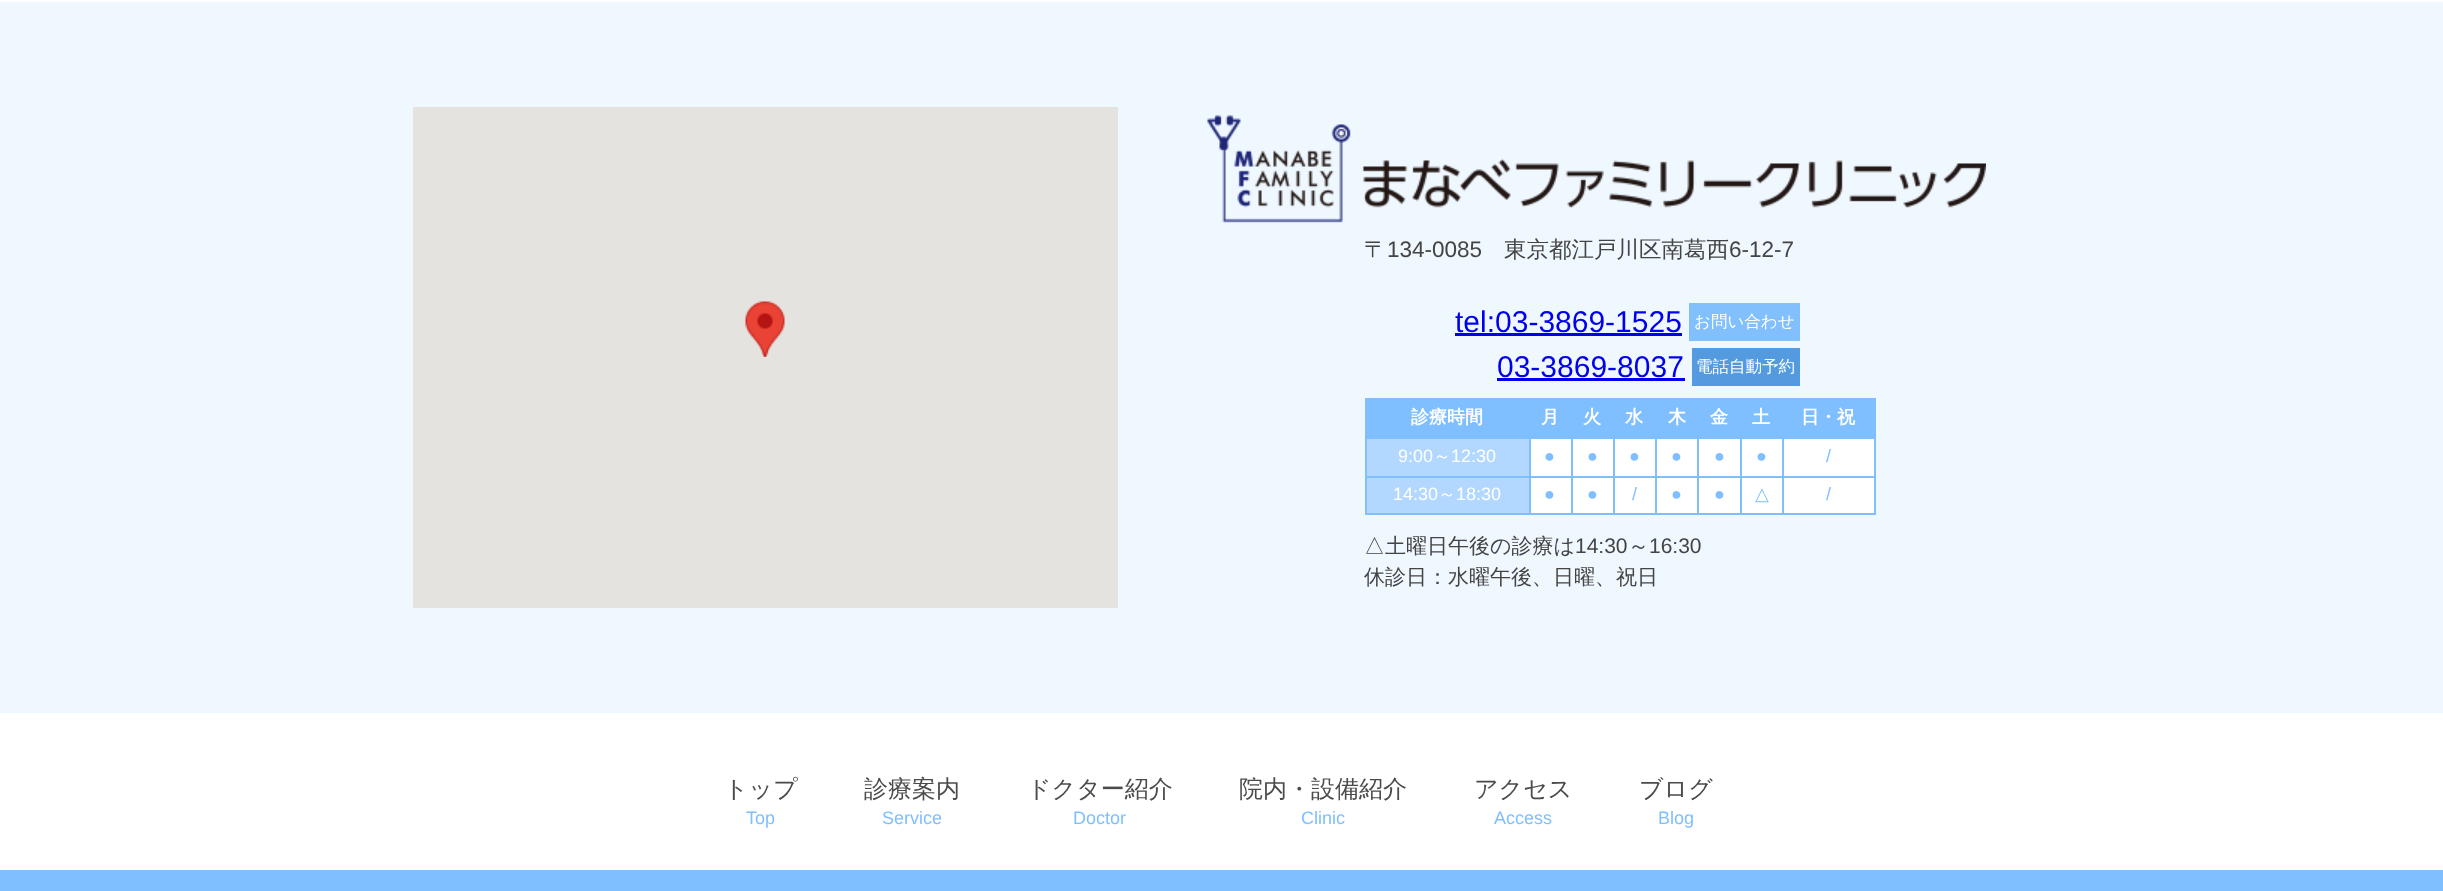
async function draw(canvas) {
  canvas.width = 2443
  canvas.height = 891
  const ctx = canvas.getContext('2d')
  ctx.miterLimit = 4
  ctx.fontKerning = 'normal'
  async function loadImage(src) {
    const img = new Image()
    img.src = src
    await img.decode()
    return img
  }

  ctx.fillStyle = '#fff'
  ctx.fillRect(0, 0, 2443, 891)
  ctx.fillStyle = '#eff7ff'
  ctx.fillRect(0, 2, 2443, 711)
  ctx.fillStyle = '#e5e3df'
  ctx.fillRect(413, 107, 705, 501)
  ctx.drawImage(await loadImage('image0.png'), 745, 301, 40, 56)
  ctx.drawImage(await loadImage('image1.png'), 1207, 115, 779, 108)
  ctx.font = '500 22.5px WenQuanYi Zen Hei'
  ctx.fillStyle = '#444'
  ctx.fillText('〒', 1364, 257)
  ctx.font = '22.5px Liberation Sans'
  ctx.fillText('134-0085', 1387, 257)
  ctx.font = '500 22.5px WenQuanYi Zen Hei'
  ctx.fillText('東京都江戸川区南葛西', 1504, 257)
  ctx.font = '22.5px Liberation Sans'
  ctx.fillText('6-12-7', 1729, 257)
  ctx.font = '30px Liberation Sans'
  ctx.fillStyle = '#00e'
  ctx.fillText('tel:03-3869-1525', 1455, 332)
  ctx.fillRect(1455, 333, 227, 3)
  ctx.fillStyle = '#81c0fd'
  ctx.fillRect(1689, 303, 111, 38)
  ctx.font = '500 16.5px WenQuanYi Zen Hei'
  ctx.fillStyle = '#fff'
  ctx.fillText('お問い合わせ', 1694, 327)
  ctx.font = '30px Liberation Sans'
  ctx.fillStyle = '#00e'
  ctx.fillText('03-3869-8037', 1497, 377)
  ctx.fillRect(1497, 378, 188, 3)
  ctx.fillStyle = '#549ade'
  ctx.fillRect(1692, 348, 108, 38)
  ctx.font = '500 16.5px WenQuanYi Zen Hei'
  ctx.fillStyle = '#fff'
  ctx.fillText('電話自動予約', 1696, 372)
  ctx.fillStyle = '#7fbfff'
  ctx.fillRect(1365, 400, 509, 37)
  ctx.font = 'bold 18px WenQuanYi Zen Hei'
  ctx.fillStyle = '#fff'
  ctx.fillText('診療時間', 1411, 423)
  ctx.fillText('月', 1541, 423)
  ctx.fillText('火', 1583, 423)
  ctx.fillText('水', 1625, 423)
  ctx.fillText('木', 1668, 423)
  ctx.fillText('金', 1710, 423)
  ctx.fillText('土', 1752, 423)
  ctx.fillStyle = '#7fbfff'
  ctx.fillRect(1365, 398, 510, 2)
  ctx.fillRect(1782, 437, 93, 2)
  ctx.fillRect(1782, 476, 93, 2)
  ctx.fillRect(1874, 476, 2, 39)
  ctx.fillRect(1874, 437, 2, 40)
  ctx.fillRect(1874, 398, 2, 40)
  ctx.fillStyle = '#fff'
  ctx.fillText('日・祝', 1801, 423)
  ctx.fillStyle = '#b2d8ff'
  ctx.fillRect(1367, 439, 162, 37)
  ctx.fillStyle = '#7fbfff'
  ctx.fillRect(1782, 513, 93, 2)
  ctx.fillRect(1782, 476, 2, 39)
  ctx.fillRect(1740, 476, 44, 2)
  ctx.fillRect(1782, 437, 2, 40)
  ctx.fillRect(1740, 437, 44, 2)
  ctx.fillRect(1740, 513, 44, 2)
  ctx.fillRect(1740, 476, 2, 39)
  ctx.fillRect(1697, 476, 45, 2)
  ctx.fillRect(1740, 437, 2, 40)
  ctx.fillRect(1697, 437, 45, 2)
  ctx.fillRect(1697, 513, 45, 2)
  ctx.fillRect(1697, 476, 2, 39)
  ctx.fillRect(1655, 476, 43, 2)
  ctx.fillRect(1697, 437, 2, 40)
  ctx.fillRect(1655, 437, 43, 2)
  ctx.fillRect(1655, 513, 43, 2)
  ctx.fillRect(1655, 476, 2, 39)
  ctx.fillRect(1613, 476, 43, 2)
  ctx.fillRect(1655, 437, 2, 40)
  ctx.fillRect(1613, 437, 43, 2)
  ctx.fillRect(1613, 513, 43, 2)
  ctx.fillRect(1613, 476, 2, 39)
  ctx.fillRect(1571, 476, 43, 2)
  ctx.fillRect(1613, 437, 2, 40)
  ctx.fillRect(1571, 437, 43, 2)
  ctx.fillRect(1571, 513, 43, 2)
  ctx.fillRect(1571, 476, 2, 39)
  ctx.fillRect(1529, 476, 43, 2)
  ctx.fillRect(1571, 437, 2, 40)
  ctx.fillRect(1529, 437, 43, 2)
  ctx.fillRect(1529, 513, 43, 2)
  ctx.fillRect(1529, 476, 2, 39)
  ctx.fillRect(1365, 476, 165, 2)
  ctx.fillRect(1529, 437, 2, 40)
  ctx.fillRect(1365, 437, 165, 2)
  ctx.fillRect(1365, 513, 165, 2)
  ctx.fillRect(1365, 476, 2, 39)
  ctx.fillRect(1365, 437, 2, 40)
  ctx.font = '18px Liberation Sans'
  ctx.fillStyle = '#fff'
  ctx.fillText('9:00', 1398, 462)
  ctx.font = '500 18px WenQuanYi Zen Hei'
  ctx.fillText('～', 1433, 462)
  ctx.font = '18px Liberation Sans'
  ctx.fillText('12:30', 1451, 462)
  ctx.fillRect(1531, 439, 40, 37)
  ctx.fillStyle = '#7fbfff'
  ctx.fillText('●', 1544, 462)
  ctx.fillStyle = '#fff'
  ctx.fillRect(1573, 439, 40, 37)
  ctx.fillStyle = '#7fbfff'
  ctx.fillText('●', 1587, 462)
  ctx.fillStyle = '#fff'
  ctx.fillRect(1615, 439, 40, 37)
  ctx.fillStyle = '#7fbfff'
  ctx.fillText('●', 1629, 462)
  ctx.fillStyle = '#fff'
  ctx.fillRect(1657, 439, 40, 37)
  ctx.fillStyle = '#7fbfff'
  ctx.fillText('●', 1671, 462)
  ctx.fillStyle = '#fff'
  ctx.fillRect(1699, 439, 41, 37)
  ctx.fillStyle = '#7fbfff'
  ctx.fillText('●', 1714, 462)
  ctx.fillStyle = '#fff'
  ctx.fillRect(1742, 439, 40, 37)
  ctx.fillStyle = '#7fbfff'
  ctx.fillText('●', 1756, 462)
  ctx.fillStyle = '#fff'
  ctx.fillRect(1784, 439, 90, 37)
  ctx.fillStyle = '#7fbfff'
  ctx.fillText('/', 1826, 462)
  ctx.fillStyle = '#b2d8ff'
  ctx.fillRect(1367, 478, 162, 35)
  ctx.fillStyle = '#fff'
  ctx.fillText('14:30', 1393, 500)
  ctx.font = '500 18px WenQuanYi Zen Hei'
  ctx.fillText('～', 1438, 500)
  ctx.font = '18px Liberation Sans'
  ctx.fillText('18:30', 1456, 500)
  ctx.fillRect(1531, 478, 40, 35)
  ctx.fillStyle = '#7fbfff'
  ctx.fillText('●', 1544, 500)
  ctx.fillStyle = '#fff'
  ctx.fillRect(1573, 478, 40, 35)
  ctx.fillStyle = '#7fbfff'
  ctx.fillText('●', 1587, 500)
  ctx.fillStyle = '#fff'
  ctx.fillRect(1615, 478, 40, 35)
  ctx.fillStyle = '#7fbfff'
  ctx.fillText('/', 1632, 500)
  ctx.fillStyle = '#fff'
  ctx.fillRect(1657, 478, 40, 35)
  ctx.fillStyle = '#7fbfff'
  ctx.fillText('●', 1671, 500)
  ctx.fillStyle = '#fff'
  ctx.fillRect(1699, 478, 41, 35)
  ctx.fillStyle = '#7fbfff'
  ctx.fillText('●', 1714, 500)
  ctx.fillStyle = '#fff'
  ctx.fillRect(1742, 478, 40, 35)
  ctx.font = '18px DejaVu Sans'
  ctx.fillStyle = '#7fbfff'
  ctx.fillText('△', 1755, 500)
  ctx.fillStyle = '#fff'
  ctx.fillRect(1784, 478, 90, 35)
  ctx.font = '18px Liberation Sans'
  ctx.fillStyle = '#7fbfff'
  ctx.fillText('/', 1826, 500)
  ctx.font = '500 21px WenQuanYi Zen Hei'
  ctx.fillStyle = '#444'
  ctx.fillText('△土曜日午後の診療は', 1364, 553)
  ctx.font = '21px Liberation Sans'
  ctx.fillText('14:30', 1575, 553)
  ctx.font = '500 21px WenQuanYi Zen Hei'
  ctx.fillText('～', 1628, 553)
  ctx.font = '21px Liberation Sans'
  ctx.fillText('16:30', 1649, 553)
  ctx.font = '500 21px WenQuanYi Zen Hei'
  ctx.fillText('休診日：水曜午後、日曜、祝日', 1364, 584)
  ctx.font = '500 24px WenQuanYi Zen Hei'
  ctx.fillStyle = '#4b4b4b'
  ctx.fillText('トップ', 724, 797)
  ctx.font = '18px Liberation Sans'
  ctx.fillStyle = '#7fbfff'
  ctx.fillText('Top', 746, 824)
  ctx.font = '500 24px WenQuanYi Zen Hei'
  ctx.fillStyle = '#4b4b4b'
  ctx.fillText('診療案内', 864, 797)
  ctx.font = '18px Liberation Sans'
  ctx.fillStyle = '#7fbfff'
  ctx.fillText('Service', 882, 824)
  ctx.font = '500 24px WenQuanYi Zen Hei'
  ctx.fillStyle = '#4b4b4b'
  ctx.fillText('ドクター紹介', 1027, 797)
  ctx.font = '18px Liberation Sans'
  ctx.fillStyle = '#7fbfff'
  ctx.fillText('Doctor', 1073, 824)
  ctx.font = '500 24px WenQuanYi Zen Hei'
  ctx.fillStyle = '#4b4b4b'
  ctx.fillText('院内・設備紹介', 1239, 797)
  ctx.font = '18px Liberation Sans'
  ctx.fillStyle = '#7fbfff'
  ctx.fillText('Clinic', 1301, 824)
  ctx.font = '500 24px WenQuanYi Zen Hei'
  ctx.fillStyle = '#4b4b4b'
  ctx.fillText('アクセス', 1474, 797)
  ctx.font = '18px Liberation Sans'
  ctx.fillStyle = '#7fbfff'
  ctx.fillText('Access', 1494, 824)
  ctx.font = '500 24px WenQuanYi Zen Hei'
  ctx.fillStyle = '#4b4b4b'
  ctx.fillText('ブログ', 1639, 797)
  ctx.font = '18px Liberation Sans'
  ctx.fillStyle = '#7fbfff'
  ctx.fillText('Blog', 1658, 824)
  ctx.fillRect(0, 870, 2443, 21)
}

draw(document.querySelector('canvas'))
